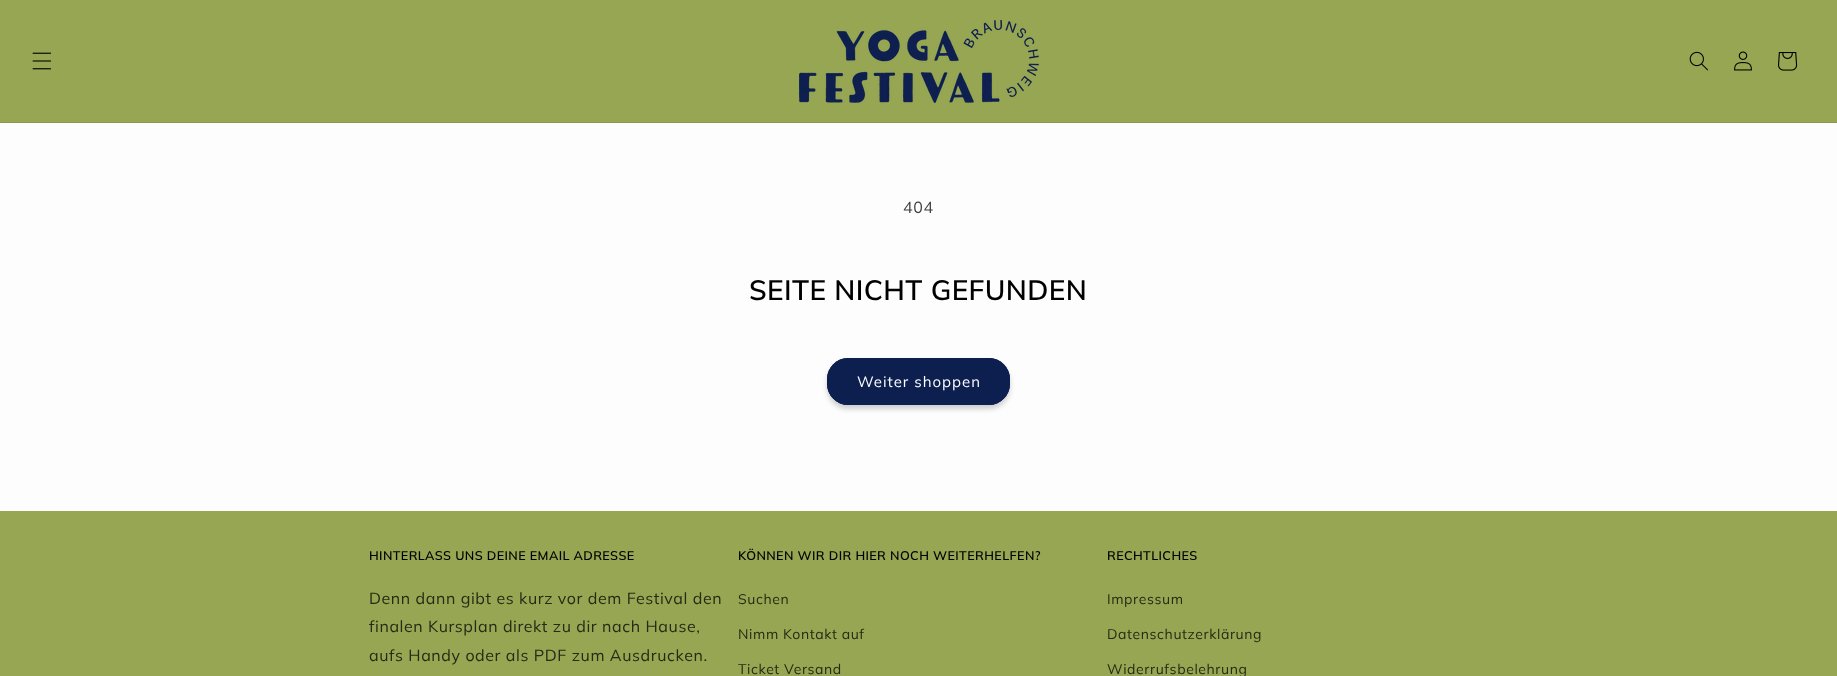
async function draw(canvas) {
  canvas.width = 1837
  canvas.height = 676
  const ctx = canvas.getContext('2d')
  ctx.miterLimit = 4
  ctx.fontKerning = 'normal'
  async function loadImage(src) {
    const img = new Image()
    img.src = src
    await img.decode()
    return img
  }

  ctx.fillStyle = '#fdfdfd'
  ctx.fillRect(0, 0, 1837, 676)
  ctx.fillStyle = '#96a652'
  ctx.fillRect(0, 0, 1837, 122)
  ctx.fillStyle = '#8a994b'
  ctx.fillRect(0, 122, 1837, 1)
  ctx.drawImage(await loadImage('image0.png'), 32, 52, 20, 18)
  ctx.drawImage(await loadImage('image1.png'), 799, 20, 240, 83)
  ctx.drawImage(await loadImage('image2.png'), 1689, 51, 19, 20)
  ctx.drawImage(await loadImage('image3.png'), 1734, 51, 18, 20)
  ctx.drawImage(await loadImage('image4.png'), 1778, 52, 20, 19)
  ctx.letterSpacing = '0.6px'
  ctx.font = '16px Muli'
  ctx.fillStyle = '#3f3f3f'
  ctx.fillText('404', 903, 213)
  ctx.letterSpacing = '0.4px'
  ctx.font = '600 28px Muli'
  ctx.fillStyle = '#000'
  ctx.fillText('SEITE NICHT GEFUNDEN', 749, 300)
  ctx.fillStyle = '#12121233'
  ctx.filter = 'blur(2.5px)'
  ctx.beginPath()
  ctx.roundRect(827, 362, 183, 47, 21)
  ctx.fill()
  ctx.filter = 'none'
  ctx.fillStyle = '#0d1f4f'
  ctx.beginPath()
  ctx.roundRect(827, 358, 183, 47, 21)
  ctx.fill()
  ctx.beginPath()
  ctx.roundRect(827.5, 358.5, 182, 46, 20.5)
  ctx.strokeStyle = '#0d1f4f'
  ctx.stroke()
  ctx.letterSpacing = '1px'
  ctx.font = '15px Muli'
  ctx.fillStyle = '#fff'
  ctx.fillText('Weiter shoppen', 857, 387)
  ctx.fillStyle = '#96a652'
  ctx.fillRect(0, 511, 1837, 165)
  ctx.letterSpacing = '0.4px'
  ctx.font = '600 12.6px Muli'
  ctx.fillStyle = '#000'
  ctx.fillText('HINTERLASS UNS DEINE EMAIL ADRESSE', 369, 560)
  ctx.letterSpacing = '0.6px'
  ctx.font = '16px Muli'
  ctx.fillStyle = '#262a15'
  ctx.fillText('Denn dann gibt es kurz vor dem Festival den', 369, 604)
  ctx.fillText('finalen Kursplan direkt zu dir nach Hause,', 369, 632)
  ctx.fillText('aufs Handy oder als PDF zum Ausdrucken.', 369, 661)
  ctx.letterSpacing = '0.4px'
  ctx.font = '600 12.6px Muli'
  ctx.fillStyle = '#000'
  ctx.fillText('KÖNNEN WIR DIR HIER NOCH WEITERHELFEN?', 738, 560)
  ctx.letterSpacing = '0.6px'
  ctx.font = '14px Muli'
  ctx.fillStyle = '#262a15'
  ctx.fillText('Suchen', 738, 604)
  ctx.fillText('Nimm Kontakt auf', 738, 639)
  ctx.fillText('Ticket Versand', 738, 674)
  ctx.letterSpacing = '0.4px'
  ctx.font = '600 12.6px Muli'
  ctx.fillStyle = '#000'
  ctx.fillText('RECHTLICHES', 1107, 560)
  ctx.letterSpacing = '0.6px'
  ctx.font = '14px Muli'
  ctx.fillStyle = '#262a15'
  ctx.fillText('Impressum', 1107, 604)
  ctx.fillText('Datenschutzerklärung', 1107, 639)
  ctx.fillText('Widerrufsbelehrung', 1107, 674)
}

draw(document.querySelector('canvas'))
